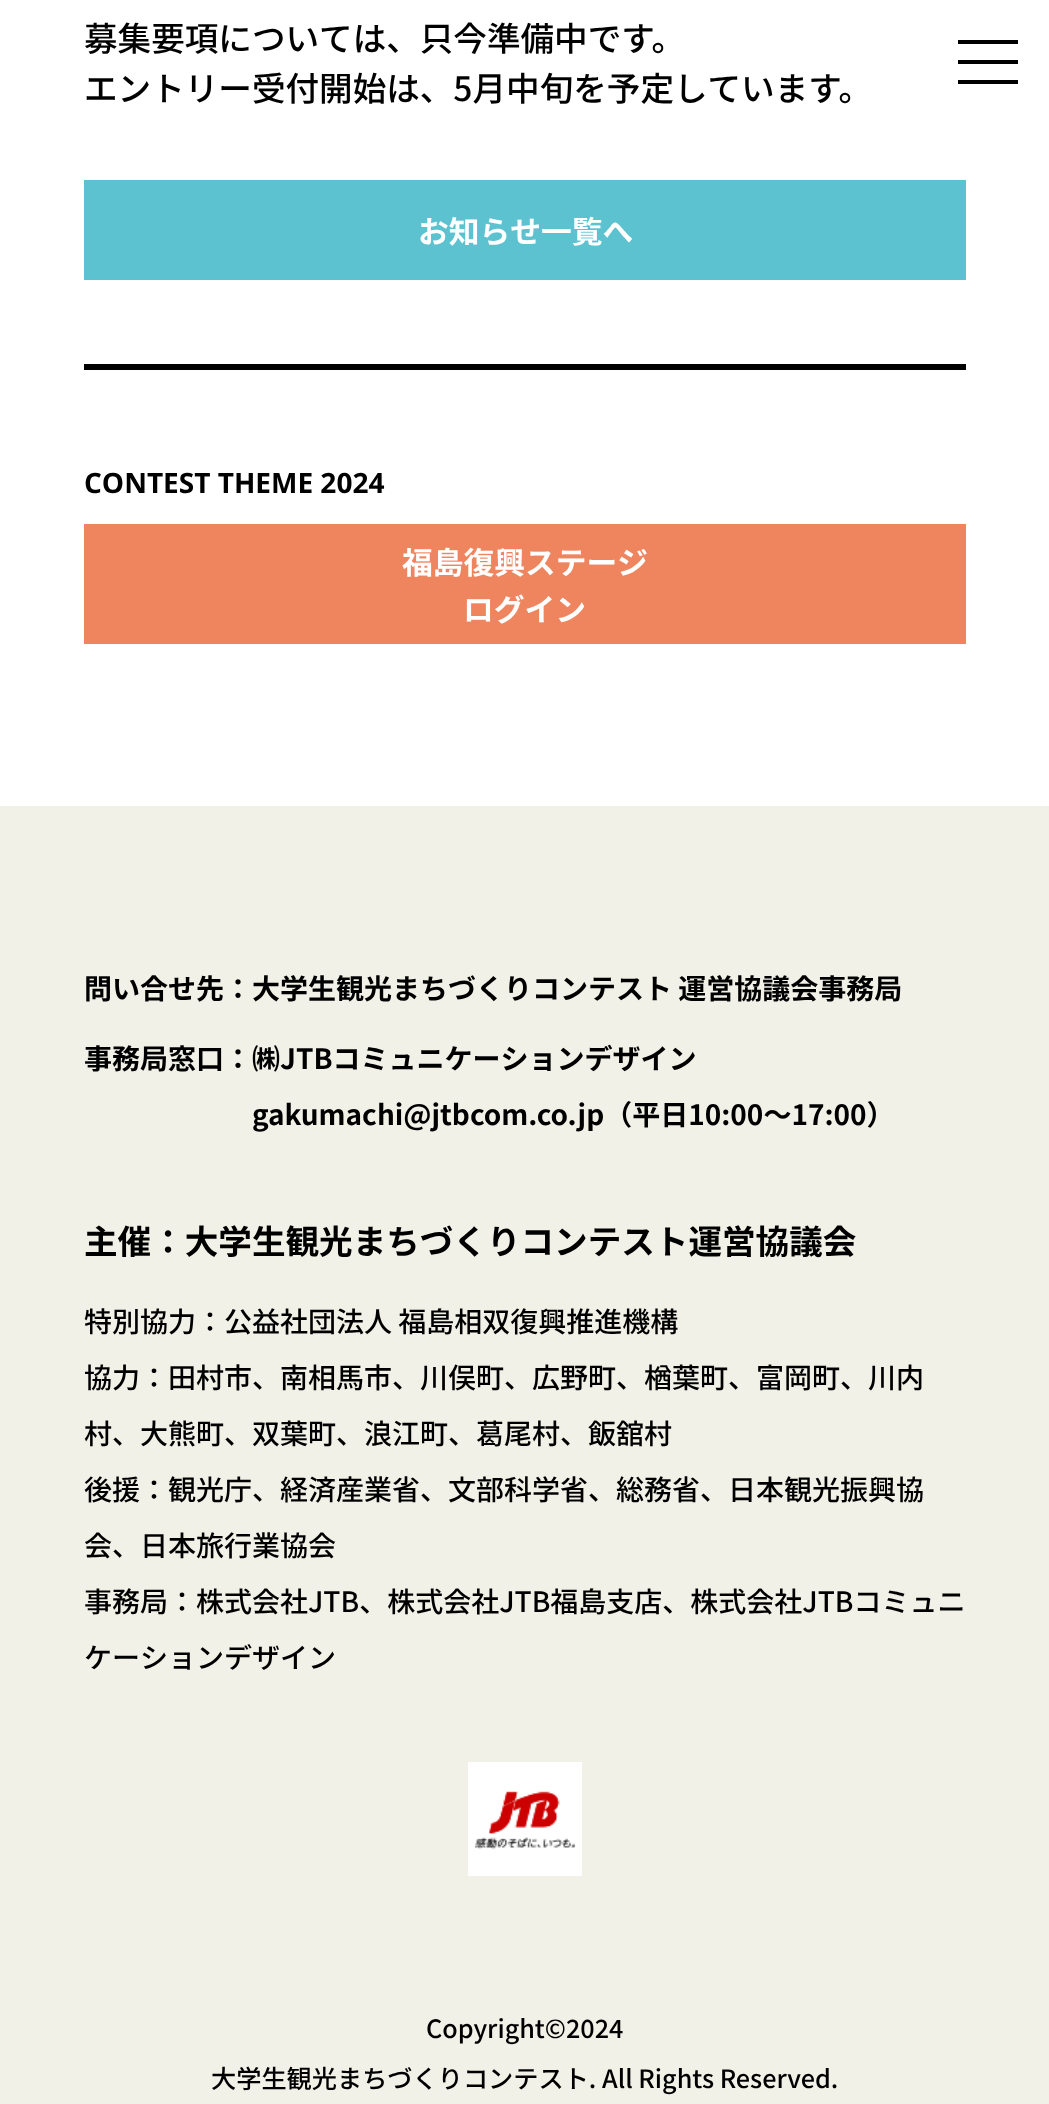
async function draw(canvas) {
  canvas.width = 1049
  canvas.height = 2104
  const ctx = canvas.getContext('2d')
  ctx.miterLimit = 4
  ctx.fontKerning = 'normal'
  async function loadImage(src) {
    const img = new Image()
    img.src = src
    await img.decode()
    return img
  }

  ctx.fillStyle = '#fff'
  ctx.fillRect(0, 0, 1049, 2104)
  ctx.font = '500 33.6px Noto Sans JP'
  ctx.fillStyle = '#000'
  ctx.fillText('募集要項については、只今準備中です。', 84, 51)
  ctx.fillText('エントリー受付開始は、5月中旬を予定しています。', 84, 101)
  ctx.fillStyle = '#5dc2d0'
  ctx.fillRect(84, 180, 882, 100)
  ctx.font = 'bold 30.75px Noto Sans JP'
  ctx.fillStyle = '#fff'
  ctx.fillText('お知らせ一覧へ', 418, 243)
  ctx.fillStyle = '#000'
  ctx.fillRect(84, 364, 882, 6)
  ctx.font = 'bold 28px Open Sans'
  ctx.fillText('CONTEST THEME 2024', 84, 493)
  ctx.fillStyle = '#ef855f'
  ctx.fillRect(84, 524, 882, 120)
  ctx.font = 'bold 30.75px Noto Sans JP'
  ctx.fillStyle = '#fff'
  ctx.fillText('福島復興ステージ', 402, 574)
  ctx.fillText('ログイン', 463, 621)
  ctx.fillStyle = '#000'
  ctx.fillRect(958, 40, 60, 4)
  ctx.fillRect(958, 60, 60, 4)
  ctx.fillRect(958, 80, 60, 4)
  ctx.fillStyle = '#f1f1e7'
  ctx.fillRect(0, 806, 1049, 1298)
  ctx.font = 'bold 28px Noto Sans JP'
  ctx.fillStyle = '#000'
  ctx.fillText('問い合せ先：大学生観光まちづくりコンテスト 運営協議会事務局', 84, 999)
  ctx.fillText('事務局窓口：㈱JTBコミュニケーションデザイン', 84, 1069)
  ctx.fillText('gakumachi@jtbcom.co.jp（平日10:00～17:00）', 252, 1125)
  ctx.font = 'bold 33.6px Noto Sans JP'
  ctx.fillText('主催：大学生観光まちづくりコンテスト運営協議会', 84, 1254)
  ctx.font = '500 28px Noto Sans JP'
  ctx.fillText('特別協力：公益社団法人 福島相双復興推進機構', 84, 1332)
  ctx.fillText('協力：田村市、南相馬市、川俣町、広野町、楢葉町、富岡町、川内', 84, 1388)
  ctx.fillText('村、大熊町、双葉町、浪江町、葛尾村、飯舘村', 84, 1444)
  ctx.fillText('後援：観光庁、経済産業省、文部科学省、総務省、日本観光振興協', 84, 1500)
  ctx.fillText('会、日本旅行業協会', 84, 1556)
  ctx.fillText('事務局：株式会社JTB、株式会社JTB福島支店、株式会社JTBコミュニ', 84, 1612)
  ctx.fillText('ケーションデザイン', 84, 1668)
  ctx.drawImage(await loadImage('image0.png'), 468, 1762, 114, 114)
  ctx.font = '500 25.2px Noto Sans JP'
  ctx.fillText('Copyright©2024', 426, 2038)
  ctx.fillText('大学生観光まちづくりコンテスト. All Rights Reserved.', 211, 2088)
}

draw(document.querySelector('canvas'))
